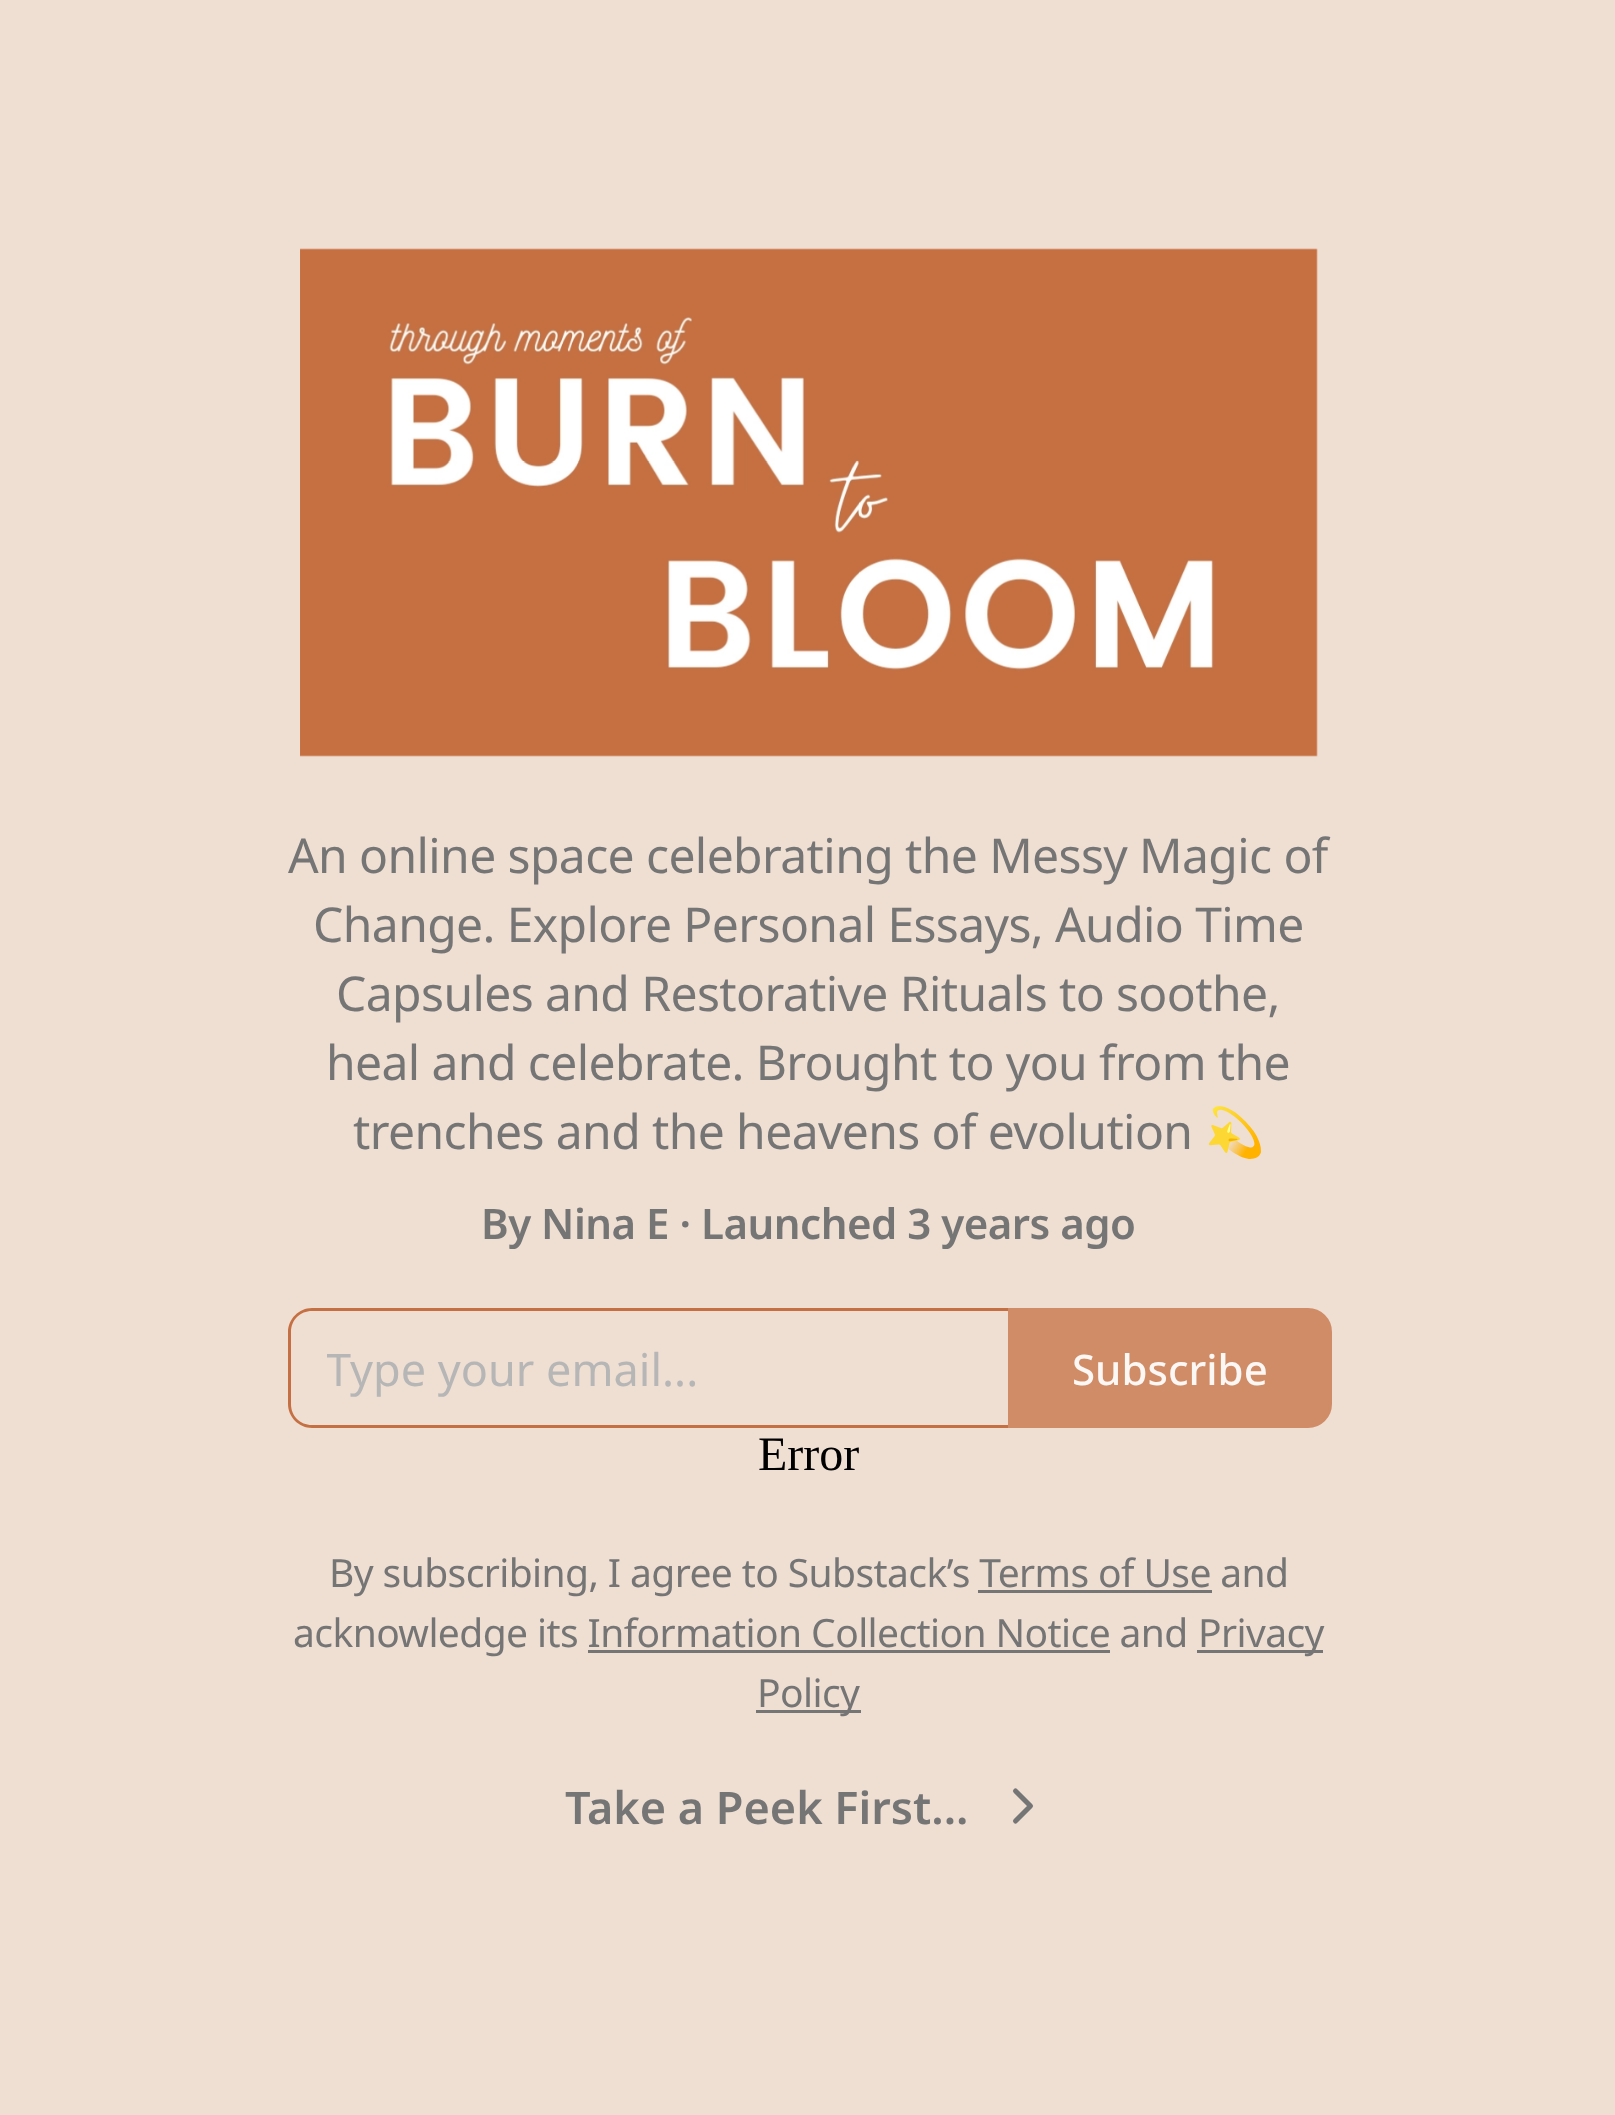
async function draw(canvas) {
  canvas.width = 1615
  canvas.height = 2115
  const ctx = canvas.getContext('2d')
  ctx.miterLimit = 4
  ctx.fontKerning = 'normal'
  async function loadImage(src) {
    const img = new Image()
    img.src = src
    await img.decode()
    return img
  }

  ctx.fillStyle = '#efded2'
  ctx.fillRect(0, 0, 1615, 2115)
  ctx.drawImage(await loadImage('image0.png'), 300, 248, 1018, 509)
  ctx.letterSpacing = '-0.6px'
  ctx.font = '48px Noto Sans'
  ctx.fillStyle = '#757575'
  ctx.fillText('An online space celebrating the Messy Magic of', 288, 873)
  ctx.fillText('Change. Explore Personal Essays, Audio Time', 313, 942)
  ctx.fillText('Capsules and Restorative Rituals to soothe,', 336, 1011)
  ctx.fillText('heal and celebrate. Brought to you from the', 326, 1080)
  ctx.fillText('trenches and the heavens of evolution', 353, 1149)
  ctx.font = '48px Noto Color Emoji'
  ctx.fillText('💫', 1205, 1149)
  ctx.letterSpacing = '-0.5px'
  ctx.font = '600 42px Noto Sans'
  ctx.fillText('By Nina E · Launched 3 years ago', 481, 1239)
  ctx.fillStyle = '#c57042'
  ctx.beginPath()
  ctx.moveTo(312, 1308)
  ctx.lineTo(1008, 1308)
  ctx.lineTo(1008, 1428)
  ctx.lineTo(312, 1428)
  ctx.bezierCurveTo(299, 1428, 288, 1417, 288, 1404)
  ctx.lineTo(288, 1332)
  ctx.bezierCurveTo(288, 1319, 299, 1308, 312, 1308)
  ctx.closePath()
  ctx.moveTo(312, 1311)
  ctx.lineTo(1008, 1311)
  ctx.lineTo(1008, 1425)
  ctx.lineTo(312, 1425)
  ctx.bezierCurveTo(300, 1425, 291, 1416, 291, 1404)
  ctx.lineTo(291, 1332)
  ctx.bezierCurveTo(291, 1320, 300, 1311, 312, 1311)
  ctx.closePath()
  ctx.fill('evenodd')
  ctx.save()
  ctx.beginPath()
  ctx.rect(327, 1338, 645, 60)
  ctx.clip()
  ctx.letterSpacing = '0px'
  ctx.font = '45px Noto Sans'
  ctx.fillStyle = '#b6b6b6'
  ctx.fillText('Type your email...', 326, 1386)
  ctx.restore()
  ctx.fillStyle = '#d08c66'
  ctx.beginPath()
  ctx.roundRect(1009.5, 1309.5, 321, 117, [0, 22.5, 22.5, 0])
  ctx.fill()
  ctx.strokeStyle = '#d08c66'
  ctx.lineWidth = 3
  ctx.stroke()
  ctx.letterSpacing = '0px'
  ctx.font = '500 42px Noto Sans'
  ctx.fillStyle = '#fbf7f4'
  ctx.fillText('Subscribe', 1072, 1385)
  ctx.font = '48px Liberation Serif'
  ctx.fillStyle = '#000'
  ctx.fillText('Error', 758, 1470)
  ctx.letterSpacing = '-0.6px'
  ctx.font = '39px Noto Sans'
  ctx.fillStyle = '#757575'
  ctx.fillText('By subscribing, I agree to Substack’s Terms of Use and', 329, 1587)
  ctx.fillRect(978, 1590, 234, 3)
  ctx.fillText('acknowledge its Information Collection Notice and', 293, 1647)
  ctx.fillRect(1197, 1650, 126, 3)
  ctx.fillText('Privacy', 1198, 1647)
  ctx.fillRect(588, 1650, 522, 3)
  ctx.fillRect(756, 1710, 105, 3)
  ctx.fillText('Policy', 757, 1707)
  ctx.letterSpacing = '0px'
  ctx.font = '600 45px Noto Sans'
  ctx.fillText('Take a Peek First...', 565, 1824)
  ctx.beginPath()
  ctx.moveTo(1015.5, 1821)
  ctx.lineTo(1030.5, 1806)
  ctx.lineTo(1015.5, 1791)
  ctx.strokeStyle = '#757575'
  ctx.lineWidth = 5
  ctx.lineCap = 'round'
  ctx.lineJoin = 'round'
  ctx.stroke()
}

draw(document.querySelector('canvas'))
